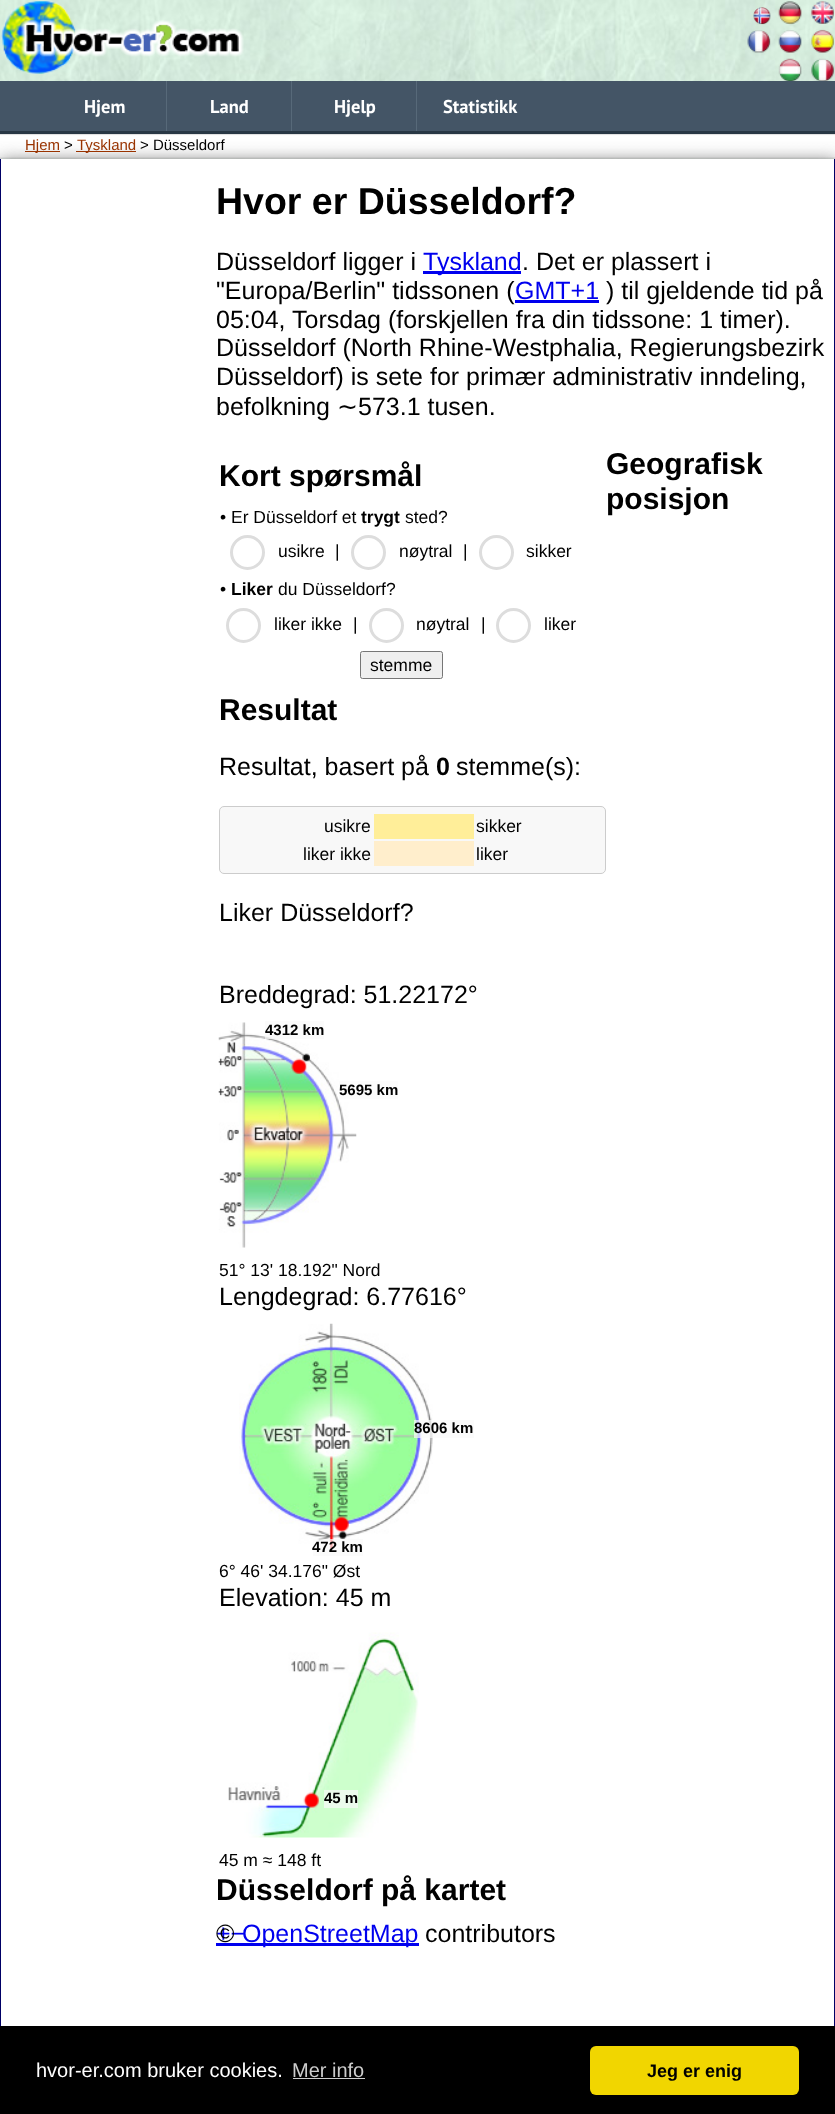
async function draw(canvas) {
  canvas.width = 835
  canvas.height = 2114
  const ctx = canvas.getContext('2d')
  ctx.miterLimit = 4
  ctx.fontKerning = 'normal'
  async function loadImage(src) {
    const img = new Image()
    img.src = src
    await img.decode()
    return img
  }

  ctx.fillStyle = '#fff'
  ctx.fillRect(0, 0, 835, 2114)
  ctx.drawImage(await loadImage('image0.png'), 0, 0, 835, 159)
  ctx.drawImage(await loadImage('image1.png'), 1, 1, 243, 73)
  ctx.drawImage(await loadImage('image2.png'), 753, 7, 18, 18)
  ctx.drawImage(await loadImage('image3.png'), 778, 1, 24, 23)
  ctx.drawImage(await loadImage('image4.png'), 811, 1, 23, 23)
  ctx.drawImage(await loadImage('image5.png'), 747, 30, 24, 23)
  ctx.drawImage(await loadImage('image6.png'), 778, 30, 24, 23)
  ctx.drawImage(await loadImage('image7.png'), 811, 29, 23, 24)
  ctx.drawImage(await loadImage('image8.png'), 778, 58, 24, 23)
  ctx.drawImage(await loadImage('image9.png'), 811, 58, 23, 23)
  ctx.fillStyle = '#456'
  ctx.fillRect(0, 81, 835, 50)
  ctx.fillStyle = '#283744'
  ctx.fillRect(0, 131, 835, 3)
  ctx.fillStyle = '#576979'
  ctx.fillRect(166, 81, 1, 50)
  ctx.font = 'bold 18.5px PT Sans'
  ctx.fillStyle = '#fff'
  ctx.fillText('Hjem', 84, 113)
  ctx.fillStyle = '#576979'
  ctx.fillRect(291, 81, 1, 50)
  ctx.fillStyle = '#fff'
  ctx.fillText('Land', 210, 113)
  ctx.fillStyle = '#576979'
  ctx.fillRect(416, 81, 1, 50)
  ctx.fillStyle = '#fff'
  ctx.fillText('Hjelp', 334, 113)
  ctx.fillText('Statistikk', 443, 113)
  ctx.drawImage(await loadImage('image10.png'), 0, 134, 835, 25)
  ctx.fillStyle = '#888'
  ctx.filter = 'blur(7.5px)'
  ctx.beginPath()
  ctx.rect(1, 160, 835, 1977)
  ctx.fill()
  ctx.filter = 'none'
  ctx.fillStyle = '#930'
  ctx.fillRect(25, 151, 35, 1)
  ctx.font = '15px Liberation Sans'
  ctx.fillText('Hjem', 25, 150)
  ctx.fillStyle = '#000'
  ctx.fillText('>', 64, 150)
  ctx.fillStyle = '#930'
  ctx.fillRect(76, 151, 60, 1)
  ctx.fillText('Tyskland', 77, 150)
  ctx.fillStyle = '#000'
  ctx.fillText('> Düsseldorf', 140, 150)
  ctx.fillStyle = '#fff'
  ctx.fillRect(1, 159, 833, 1867)
  ctx.fillStyle = '#006'
  ctx.fillRect(834, 159, 1, 1867)
  ctx.fillRect(0, 159, 1, 1867)
  ctx.font = 'bold 37.5px Liberation Sans'
  ctx.fillStyle = '#000'
  ctx.fillText('Hvor er Düsseldorf?', 216, 214)
  ctx.font = '25px Liberation Sans'
  ctx.fillText('Düsseldorf ligger i', 216, 270)
  ctx.fillStyle = '#00e'
  ctx.fillRect(423, 271, 98, 3)
  ctx.fillText('Tyskland', 423, 270)
  ctx.fillStyle = '#000'
  ctx.fillText('. Det er plassert i', 522, 270)
  ctx.fillText('"Europa/Berlin" tidssonen (', 216, 299)
  ctx.fillStyle = '#00e'
  ctx.fillText('GMT+1', 515, 299)
  ctx.fillRect(515, 300, 84, 3)
  ctx.fillStyle = '#000'
  ctx.fillText(') til gjeldende tid på', 606, 299)
  ctx.fillText('05:04, Torsdag (forskjellen fra din tidssone: 1 timer).', 216, 328)
  ctx.fillText('Düsseldorf (North Rhine-Westphalia, Regierungsbezirk', 216, 356)
  ctx.fillText('Düsseldorf) is sete for primær administrativ inndeling,', 216, 385)
  ctx.fillText('befolkning', 216, 415)
  ctx.font = '25px DejaVu Sans'
  ctx.fillText('∼', 337, 415)
  ctx.font = '25px Liberation Sans'
  ctx.fillText('573.1 tusen.', 358, 415)
  ctx.font = 'bold 30px Liberation Sans'
  ctx.fillText('Kort spørsmål', 219, 486)
  ctx.font = '17.5px Liberation Sans'
  ctx.fillText('• Er Düsseldorf et', 220, 523)
  ctx.font = 'bold 17.5px Liberation Sans'
  ctx.fillText('trygt', 361, 523)
  ctx.font = '17.5px Liberation Sans'
  ctx.fillText('sted?', 405, 523)
  ctx.beginPath()
  ctx.arc(247.5, 552.5, 16, 0, 2 * Math.PI)
  ctx.strokeStyle = '#ddd'
  ctx.lineWidth = 3
  ctx.stroke()
  ctx.fillText('usikre', 278, 557)
  ctx.fillText('|', 335, 557)
  ctx.beginPath()
  ctx.arc(368.5, 552.5, 16, 0, 2 * Math.PI)
  ctx.stroke()
  ctx.fillText('nøytral', 399, 557)
  ctx.fillText('|', 463, 557)
  ctx.beginPath()
  ctx.arc(496.5, 552.5, 16, 0, 2 * Math.PI)
  ctx.stroke()
  ctx.fillText('sikker', 526, 557)
  ctx.fillText('•', 220, 595)
  ctx.font = 'bold 17.5px Liberation Sans'
  ctx.fillText('Liker', 231, 595)
  ctx.font = '17.5px Liberation Sans'
  ctx.fillText('du Düsseldorf?', 278, 595)
  ctx.beginPath()
  ctx.arc(243.5, 625.5, 16, 0, 2 * Math.PI)
  ctx.stroke()
  ctx.fillText('liker ikke', 274, 630)
  ctx.fillText('|', 353, 630)
  ctx.beginPath()
  ctx.arc(386.5, 625.5, 16, 0, 2 * Math.PI)
  ctx.stroke()
  ctx.fillText('nøytral', 416, 630)
  ctx.fillText('|', 481, 630)
  ctx.beginPath()
  ctx.arc(513.5, 625.5, 16, 0, 2 * Math.PI)
  ctx.stroke()
  ctx.fillText('liker', 544, 630)
  ctx.fillStyle = '#efefef'
  ctx.beginPath()
  ctx.roundRect(360.5, 651.5, 82, 27, 2)
  ctx.fill()
  ctx.strokeStyle = '#767676'
  ctx.lineWidth = 1
  ctx.stroke()
  ctx.fillStyle = '#000'
  ctx.fillText('stemme', 370, 671)
  ctx.font = 'bold 30px Liberation Sans'
  ctx.fillText('Geografisk', 606, 474)
  ctx.fillText('posisjon', 606, 509)
  ctx.fillText('Resultat', 219, 720)
  ctx.font = '25px Liberation Sans'
  ctx.fillText('Resultat, basert på', 219, 775)
  ctx.font = 'bold 25px Liberation Sans'
  ctx.fillText('0', 436, 775)
  ctx.font = '25px Liberation Sans'
  ctx.fillText('stemme(s):', 456, 775)
  ctx.fillStyle = '#f8f8f8'
  ctx.beginPath()
  ctx.roundRect(219.5, 806.5, 386, 67, 4.5)
  ctx.fill()
  ctx.strokeStyle = '#ccc'
  ctx.stroke()
  ctx.font = '17.5px Liberation Sans'
  ctx.fillStyle = '#000'
  ctx.fillText('usikre', 324, 832)
  ctx.fillStyle = '#fe9'
  ctx.fillRect(374, 814, 100, 25)
  ctx.fillStyle = '#000'
  ctx.fillText('sikker', 476, 832)
  ctx.fillText('liker ikke', 303, 860)
  ctx.fillStyle = '#fec'
  ctx.fillRect(374, 841, 100, 25)
  ctx.fillStyle = '#000'
  ctx.fillText('liker', 476, 860)
  ctx.font = '25px Liberation Sans'
  ctx.fillText('Liker Düsseldorf?', 219, 921)
  ctx.fillText('Breddegrad: 51.22172°', 219, 1003)
  ctx.drawImage(await loadImage('image11.png'), 218, 1022, 139, 226)
  ctx.fillStyle = '#fafafab3'
  ctx.fillRect(265, 1021, 59, 18)
  ctx.font = 'bold 15px Liberation Sans'
  ctx.fillStyle = '#000'
  ctx.fillText('4312 km', 265, 1035)
  ctx.drawImage(await loadImage('image12.png'), 302, 1053, 8, 9)
  ctx.drawImage(await loadImage('image13.png'), 291, 1058, 16, 16)
  ctx.fillStyle = '#fcfcfc'
  ctx.fillRect(339, 1081, 59, 18)
  ctx.fillStyle = '#000'
  ctx.fillText('5695 km', 339, 1095)
  ctx.font = '17.5px Liberation Sans'
  ctx.fillText('51° 13\' 18.192" Nord', 219, 1276)
  ctx.font = '25px Liberation Sans'
  ctx.fillText('Lengdegrad: 6.77616°', 219, 1305)
  ctx.drawImage(await loadImage('image14.png'), 239, 1323, 194, 226)
  ctx.fillStyle = '#fafafab3'
  ctx.fillRect(414, 1420, 60, 18)
  ctx.font = 'bold 15px Liberation Sans'
  ctx.fillStyle = '#000'
  ctx.fillText('8606 km', 414, 1433)
  ctx.drawImage(await loadImage('image16.png'), 338, 1531, 9, 8)
  ctx.drawImage(await loadImage('image15.png'), 333, 1516, 16, 16)
  ctx.fillStyle = '#fafafab3'
  ctx.fillRect(313, 1539, 50, 17)
  ctx.fillStyle = '#000'
  ctx.fillText('472 km', 312, 1552)
  ctx.font = '17.5px Liberation Sans'
  ctx.fillText('6° 46\' 34.176" Øst', 219, 1577)
  ctx.font = '25px Liberation Sans'
  ctx.fillText('Elevation: 45 m', 219, 1606)
  ctx.drawImage(await loadImage('image17.png'), 228, 1632, 191, 206)
  ctx.drawImage(await loadImage('image18.png'), 303, 1792, 16, 16)
  ctx.fillStyle = '#fafafab3'
  ctx.fillRect(324, 1790, 34, 18)
  ctx.font = 'bold 15px Liberation Sans'
  ctx.fillStyle = '#000'
  ctx.fillText('45 m', 324, 1803)
  ctx.font = '17.5px Liberation Sans'
  ctx.fillText('45 m ≈ 148 ft', 219, 1866)
  ctx.font = 'bold 30px Liberation Sans'
  ctx.fillText('Düsseldorf på kartet', 216, 1900)
  ctx.font = '25px Liberation Sans'
  ctx.fillStyle = '#00e'
  ctx.fillText('+−', 216, 1942)
  ctx.fillStyle = '#000'
  ctx.fillText('©', 216, 1942)
  ctx.fillStyle = '#00e'
  ctx.fillRect(216, 1943, 203, 3)
  ctx.fillText('OpenStreetMap', 242, 1942)
  ctx.fillStyle = '#000'
  ctx.fillText('contributors', 425, 1942)
  ctx.fillRect(0, 2026, 835, 88)
  ctx.font = '20px Liberation Sans'
  ctx.fillStyle = '#fff'
  ctx.fillText('hvor-er.com bruker cookies.', 36, 2077)
  ctx.fillStyle = '#ccc'
  ctx.fillText('Mer info', 292, 2077)
  ctx.fillRect(293, 2078, 72, 1)
  ctx.fillStyle = '#f1d600'
  ctx.beginPath()
  ctx.roundRect(590, 2046, 209, 49, 6)
  ctx.fill()
  ctx.font = 'bold 18px Liberation Sans'
  ctx.fillStyle = '#000'
  ctx.fillText('Jeg er enig', 647, 2077)
}

draw(document.querySelector('canvas'))
